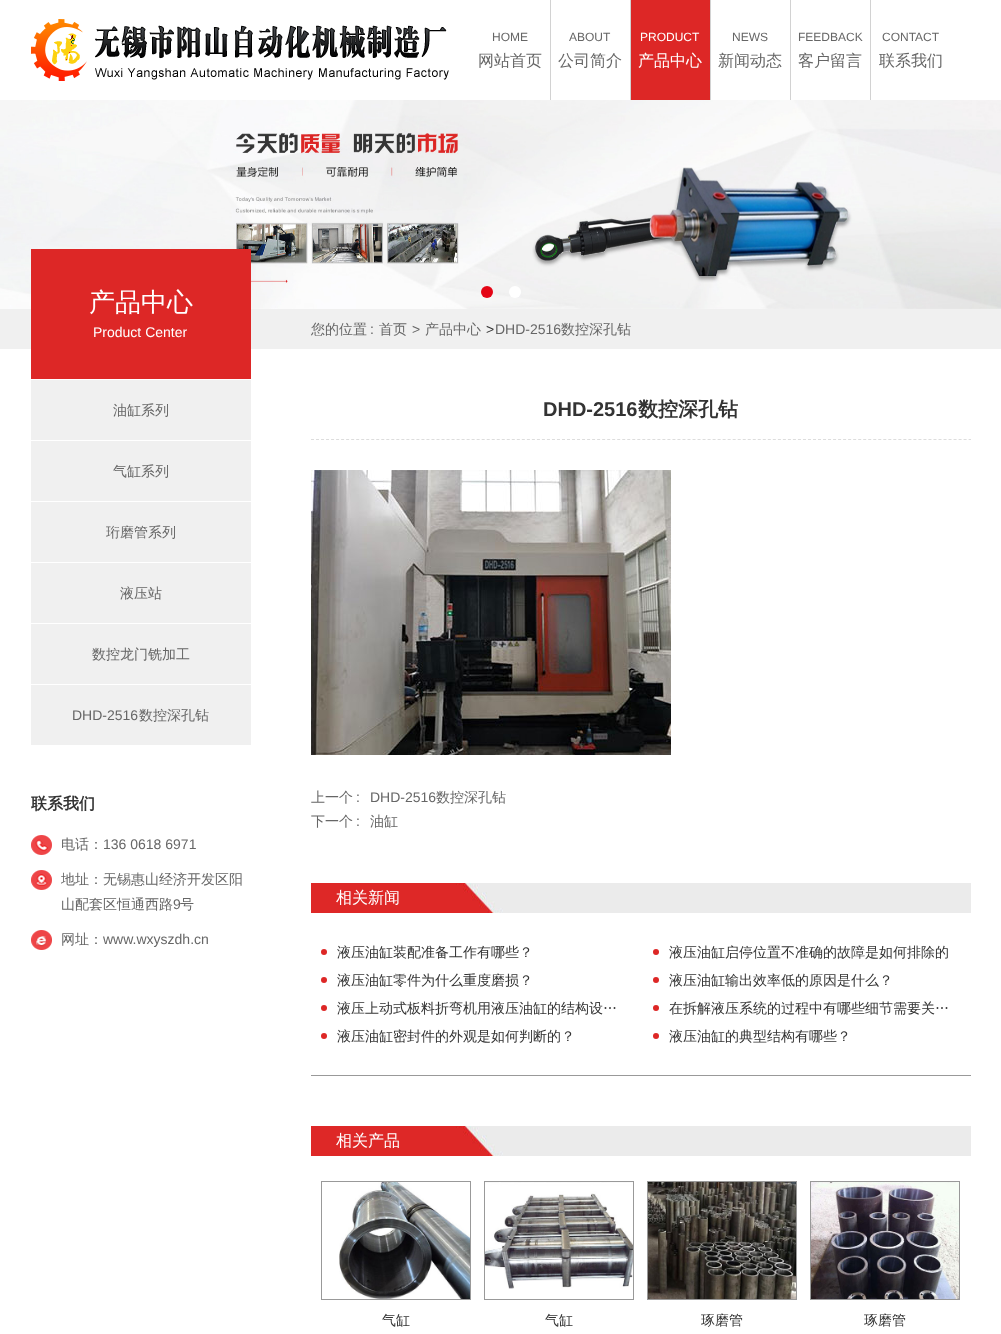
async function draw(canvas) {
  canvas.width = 1001
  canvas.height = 1334
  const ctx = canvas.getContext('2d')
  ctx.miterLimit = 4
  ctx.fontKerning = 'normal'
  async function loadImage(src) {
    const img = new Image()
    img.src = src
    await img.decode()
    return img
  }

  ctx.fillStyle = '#fff'
  ctx.fillRect(0, 0, 1001, 1334)
  ctx.drawImage(await loadImage('image0.png'), 31, 19, 418, 62)
  ctx.fillStyle = '#d2d2d2'
  ctx.fillRect(550, 0, 1, 100)
  ctx.font = '12px Liberation Sans'
  ctx.fillStyle = '#666'
  ctx.fillText('HOME', 492, 41)
  ctx.font = '500 16px WenQuanYi Zen Hei'
  ctx.fillText('网站首页', 478, 66)
  ctx.fillStyle = '#d2d2d2'
  ctx.fillRect(630, 0, 1, 100)
  ctx.font = '12px Liberation Sans'
  ctx.fillStyle = '#666'
  ctx.fillText('ABOUT', 569, 41)
  ctx.font = '500 16px WenQuanYi Zen Hei'
  ctx.fillText('公司简介', 558, 66)
  ctx.fillStyle = '#dd2726'
  ctx.fillRect(631, 0, 79, 100)
  ctx.fillStyle = '#d2d2d2'
  ctx.fillRect(710, 0, 1, 100)
  ctx.font = '12px Liberation Sans'
  ctx.fillStyle = '#fff'
  ctx.fillText('PRODUCT', 640, 41)
  ctx.font = '500 16px WenQuanYi Zen Hei'
  ctx.fillText('产品中心', 638, 66)
  ctx.fillStyle = '#d2d2d2'
  ctx.fillRect(790, 0, 1, 100)
  ctx.font = '12px Liberation Sans'
  ctx.fillStyle = '#666'
  ctx.fillText('NEWS', 732, 41)
  ctx.font = '500 16px WenQuanYi Zen Hei'
  ctx.fillText('新闻动态', 718, 66)
  ctx.fillStyle = '#d2d2d2'
  ctx.fillRect(870, 0, 1, 100)
  ctx.font = '12px Liberation Sans'
  ctx.fillStyle = '#666'
  ctx.fillText('FEEDBACK', 798, 41)
  ctx.font = '500 16px WenQuanYi Zen Hei'
  ctx.fillText('客户留言', 798, 66)
  ctx.font = '12px Liberation Sans'
  ctx.fillText('CONTACT', 882, 41)
  ctx.font = '500 16px WenQuanYi Zen Hei'
  ctx.fillText('联系我们', 879, 66)
  ctx.drawImage(await loadImage('image1.png'), 0, 100, 1001, 209)
  ctx.fillStyle = '#e40515'
  ctx.beginPath()
  ctx.arc(487, 292, 6, 0, 2 * Math.PI)
  ctx.fill()
  ctx.fillStyle = '#fff'
  ctx.beginPath()
  ctx.arc(515, 292, 6, 0, 2 * Math.PI)
  ctx.fill()
  ctx.fillStyle = '#f0f0f0'
  ctx.fillRect(0, 309, 1001, 40)
  ctx.fillStyle = '#dd2726'
  ctx.fillRect(31, 249, 220, 130)
  ctx.font = '500 26px WenQuanYi Zen Hei'
  ctx.fillStyle = '#fff'
  ctx.fillText('产品中心', 89, 311)
  ctx.font = '14px Liberation Sans'
  ctx.fillText('Product Center', 93, 337)
  ctx.fillStyle = '#f0f0f0'
  ctx.fillRect(31, 380, 220, 60)
  ctx.font = '500 14px WenQuanYi Zen Hei'
  ctx.fillStyle = '#666'
  ctx.fillText('油缸系列', 113, 415)
  ctx.fillStyle = '#f0f0f0'
  ctx.fillRect(31, 441, 220, 60)
  ctx.fillStyle = '#666'
  ctx.fillText('气缸系列', 113, 476)
  ctx.fillStyle = '#f0f0f0'
  ctx.fillRect(31, 502, 220, 60)
  ctx.fillStyle = '#666'
  ctx.fillText('珩磨管系列', 106, 537)
  ctx.fillStyle = '#f0f0f0'
  ctx.fillRect(31, 563, 220, 60)
  ctx.fillStyle = '#666'
  ctx.fillText('液压站', 120, 598)
  ctx.fillStyle = '#f0f0f0'
  ctx.fillRect(31, 624, 220, 60)
  ctx.fillStyle = '#666'
  ctx.fillText('数控龙门铣加工', 92, 659)
  ctx.fillStyle = '#f0f0f0'
  ctx.fillRect(31, 685, 220, 60)
  ctx.font = '14px Liberation Sans'
  ctx.fillStyle = '#666'
  ctx.fillText('DHD-2516', 72, 720)
  ctx.font = '500 14px WenQuanYi Zen Hei'
  ctx.fillText('数控深孔钻', 139, 720)
  ctx.font = 'bold 16px WenQuanYi Zen Hei'
  ctx.fillStyle = '#333'
  ctx.fillText('联系我们', 31, 809)
  ctx.drawImage(await loadImage('image2.png'), 31, 835, 21, 20)
  ctx.font = '500 14px WenQuanYi Zen Hei'
  ctx.fillStyle = '#666'
  ctx.fillText('电话：', 61, 849)
  ctx.font = '14px Liberation Sans'
  ctx.fillText('136 0618 6971', 103, 849)
  ctx.drawImage(await loadImage('image3.png'), 31, 870, 21, 20)
  ctx.font = '500 14px WenQuanYi Zen Hei'
  ctx.fillText('地址：无锡惠山经济开发区阳', 61, 884)
  ctx.fillText('山配套区恒通西路', 61, 909)
  ctx.font = '14px Liberation Sans'
  ctx.fillText('9', 173, 909)
  ctx.font = '500 14px WenQuanYi Zen Hei'
  ctx.fillText('号', 180, 909)
  ctx.drawImage(await loadImage('image4.png'), 31, 930, 21, 20)
  ctx.fillText('网址：', 61, 944)
  ctx.font = '14px Liberation Sans'
  ctx.fillText('www.wxyszdh.cn', 103, 944)
  ctx.beginPath()
  ctx.moveTo(311, 439.5)
  ctx.lineTo(971, 439.5)
  ctx.strokeStyle = '#ddd'
  ctx.setLineDash([3, 2.02])
  ctx.stroke()
  ctx.font = 'bold 20px Liberation Sans'
  ctx.fillStyle = '#333'
  ctx.fillText('DHD-2516', 543, 416)
  ctx.font = 'bold 20px WenQuanYi Zen Hei'
  ctx.fillText('数控深孔钻', 638, 416)
  ctx.drawImage(await loadImage('image5.png'), 311, 470, 360, 285)
  ctx.font = '500 14px WenQuanYi Zen Hei'
  ctx.fillStyle = '#666'
  ctx.fillText('上一个', 311, 802)
  ctx.font = '14px Liberation Sans'
  ctx.fillText(':', 356, 802)
  ctx.fillText('DHD-2516', 370, 802)
  ctx.font = '500 14px WenQuanYi Zen Hei'
  ctx.fillText('数控深孔钻', 436, 802)
  ctx.fillText('下一个', 311, 826)
  ctx.font = '14px Liberation Sans'
  ctx.fillText(':', 356, 826)
  ctx.font = '500 14px WenQuanYi Zen Hei'
  ctx.fillText('油缸', 370, 826)
  ctx.drawImage(await loadImage('image6.png'), 311, 883, 660, 30)
  ctx.font = '500 16px WenQuanYi Zen Hei'
  ctx.fillStyle = '#fff'
  ctx.fillText('相关新闻', 336, 903)
  ctx.fillStyle = '#999'
  ctx.fillRect(311, 1075, 660, 1)
  ctx.fillStyle = '#dd2726'
  ctx.beginPath()
  ctx.arc(324, 952, 3, 0, 2 * Math.PI)
  ctx.fill()
  ctx.font = '500 14px WenQuanYi Zen Hei'
  ctx.fillStyle = '#333'
  ctx.fillText('液压油缸装配准备工作有哪些？', 337, 957)
  ctx.fillStyle = '#dd2726'
  ctx.beginPath()
  ctx.arc(656, 952, 3, 0, 2 * Math.PI)
  ctx.fill()
  ctx.fillStyle = '#333'
  ctx.fillText('液压油缸启停位置不准确的故障是如何排除的', 669, 957)
  ctx.fillStyle = '#dd2726'
  ctx.beginPath()
  ctx.arc(324, 980, 3, 0, 2 * Math.PI)
  ctx.fill()
  ctx.fillStyle = '#333'
  ctx.fillText('液压油缸零件为什么重度磨损？', 337, 985)
  ctx.fillStyle = '#dd2726'
  ctx.beginPath()
  ctx.arc(656, 980, 3, 0, 2 * Math.PI)
  ctx.fill()
  ctx.fillStyle = '#333'
  ctx.fillText('液压油缸输出效率低的原因是什么？', 669, 985)
  ctx.fillStyle = '#dd2726'
  ctx.beginPath()
  ctx.arc(324, 1008, 3, 0, 2 * Math.PI)
  ctx.fill()
  ctx.fillStyle = '#333'
  ctx.fillText('液压上动式板料折弯机用液压油缸的结构设…', 337, 1013)
  ctx.fillStyle = '#dd2726'
  ctx.beginPath()
  ctx.arc(656, 1008, 3, 0, 2 * Math.PI)
  ctx.fill()
  ctx.fillStyle = '#333'
  ctx.fillText('在拆解液压系统的过程中有哪些细节需要关…', 669, 1013)
  ctx.fillStyle = '#dd2726'
  ctx.beginPath()
  ctx.arc(324, 1036, 3, 0, 2 * Math.PI)
  ctx.fill()
  ctx.fillStyle = '#333'
  ctx.fillText('液压油缸密封件的外观是如何判断的？', 337, 1041)
  ctx.fillStyle = '#dd2726'
  ctx.beginPath()
  ctx.arc(656, 1036, 3, 0, 2 * Math.PI)
  ctx.fill()
  ctx.fillStyle = '#333'
  ctx.fillText('液压油缸的典型结构有哪些？', 669, 1041)
  ctx.drawImage(await loadImage('image6.png'), 311, 1126, 660, 30)
  ctx.font = '500 16px WenQuanYi Zen Hei'
  ctx.fillStyle = '#fff'
  ctx.fillText('相关产品', 336, 1146)
  ctx.strokeStyle = '#999'
  ctx.setLineDash([])
  ctx.strokeRect(321.5, 1181.5, 149, 118)
  ctx.drawImage(await loadImage('image7.png'), 339, 1182, 131, 117)
  ctx.font = '500 14px WenQuanYi Zen Hei'
  ctx.fillStyle = '#333'
  ctx.fillText('气缸', 382, 1325)
  ctx.strokeRect(484.5, 1181.5, 149, 118)
  ctx.drawImage(await loadImage('image8.png'), 485, 1182, 148, 107)
  ctx.fillText('气缸', 545, 1325)
  ctx.strokeRect(647.5, 1181.5, 149, 118)
  ctx.drawImage(await loadImage('image9.png'), 648, 1182, 148, 117)
  ctx.fillText('琢磨管', 701, 1325)
  ctx.strokeRect(810.5, 1181.5, 149, 118)
  ctx.drawImage(await loadImage('image10.png'), 811, 1182, 148, 117)
  ctx.fillText('琢磨管', 864, 1325)
  ctx.fillStyle = '#666'
  ctx.fillText('您的位置', 311, 334)
  ctx.font = '14px Liberation Sans'
  ctx.fillText(':', 370, 334)
  ctx.font = '500 14px WenQuanYi Zen Hei'
  ctx.fillText('首页', 379, 334)
  ctx.font = '14px Liberation Sans'
  ctx.fillText('>', 412, 334)
  ctx.font = '500 14px WenQuanYi Zen Hei'
  ctx.fillText('产品中心', 425, 334)
  ctx.font = '14px Liberation Sans'
  ctx.fillStyle = '#333'
  ctx.fillText('>', 486, 334)
  ctx.fillStyle = '#666'
  ctx.fillText('DHD-2516', 495, 334)
  ctx.font = '500 14px WenQuanYi Zen Hei'
  ctx.fillText('数控深孔钻', 561, 334)
}

draw(document.querySelector('canvas'))
